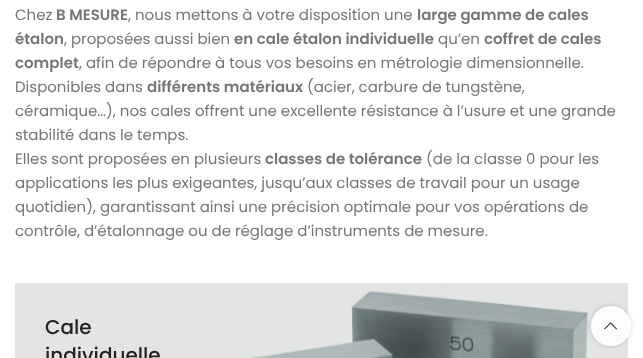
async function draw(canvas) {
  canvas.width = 643
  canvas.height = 358
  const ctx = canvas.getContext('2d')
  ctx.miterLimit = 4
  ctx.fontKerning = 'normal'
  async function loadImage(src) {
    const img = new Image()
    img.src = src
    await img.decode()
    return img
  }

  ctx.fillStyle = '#fff'
  ctx.fillRect(0, 0, 643, 358)
  ctx.font = '15px Poppins'
  ctx.fillStyle = '#767676'
  ctx.fillText('Chez', 15, 20)
  ctx.font = '600 15px Poppins'
  ctx.fillText('B MESURE', 56, 20)
  ctx.font = '15px Poppins'
  ctx.fillText(', nous mettons à votre disposition une', 128, 20)
  ctx.font = '600 15px Poppins'
  ctx.fillText('large gamme de cales', 417, 20)
  ctx.fillText('étalon', 15, 44)
  ctx.font = '15px Poppins'
  ctx.fillText(', proposées aussi bien', 64, 44)
  ctx.font = '600 15px Poppins'
  ctx.fillText('en cale étalon individuelle', 234, 44)
  ctx.font = '15px Poppins'
  ctx.fillText('qu’en', 438, 44)
  ctx.font = '600 15px Poppins'
  ctx.fillText('coffret de cales', 484, 44)
  ctx.fillText('complet', 15, 68)
  ctx.font = '15px Poppins'
  ctx.fillText(', afin de répondre à tous vos besoins en métrologie dimensionnelle.', 79, 68)
  ctx.fillText('Disponibles dans', 15, 92)
  ctx.font = '600 15px Poppins'
  ctx.fillText('différents matériaux', 147, 92)
  ctx.font = '15px Poppins'
  ctx.fillText('(acier, carbure de tungstène,', 307, 92)
  ctx.fillText('céramique…), nos cales offrent une excellente résistance à l’usure et une grande', 15, 116)
  ctx.fillText('stabilité dans le temps.', 15, 140)
  ctx.fillText('Elles sont proposées en plusieurs', 15, 164)
  ctx.font = '600 15px Poppins'
  ctx.fillText('classes de tolérance', 265, 164)
  ctx.font = '15px Poppins'
  ctx.fillText('(de la classe 0 pour les', 426, 164)
  ctx.fillText('applications les plus exigeantes, jusqu’aux classes de travail pour un usage', 15, 188)
  ctx.fillText('quotidien), garantissant ainsi une précision optimale pour vos opérations de', 15, 212)
  ctx.fillText('contrôle, d’étalonnage ou de réglage d’instruments de mesure.', 15, 236)
  ctx.drawImage(await loadImage('image0.png'), 15, 283, 613, 75)
  ctx.font = '500 20px Poppins'
  ctx.fillStyle = '#242424'
  ctx.fillText('Cale', 45, 334)
  ctx.fillText('individuelle', 45, 362)
  ctx.save()
  ctx.beginPath()
  ctx.moveTo(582, 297)
  ctx.lineTo(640, 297)
  ctx.lineTo(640, 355)
  ctx.lineTo(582, 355)
  ctx.closePath()
  ctx.moveTo(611, 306)
  ctx.bezierCurveTo(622, 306, 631, 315, 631, 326)
  ctx.bezierCurveTo(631, 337, 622, 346, 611, 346)
  ctx.bezierCurveTo(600, 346, 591, 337, 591, 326)
  ctx.bezierCurveTo(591, 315, 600, 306, 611, 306)
  ctx.closePath()
  ctx.clip('evenodd')
  ctx.fillStyle = '#0000002b'
  ctx.filter = 'blur(2.5px)'
  ctx.beginPath()
  ctx.roundRect(591, 306, 40, 40, 20)
  ctx.fill()
  ctx.filter = 'none'
  ctx.restore()
  ctx.fillStyle = '#ffffffe6'
  ctx.beginPath()
  ctx.arc(611, 326, 20, 0, 2 * Math.PI)
  ctx.fill()
  ctx.drawImage(await loadImage('image1.png'), 604, 322, 13, 8)
}

draw(document.querySelector('canvas'))
